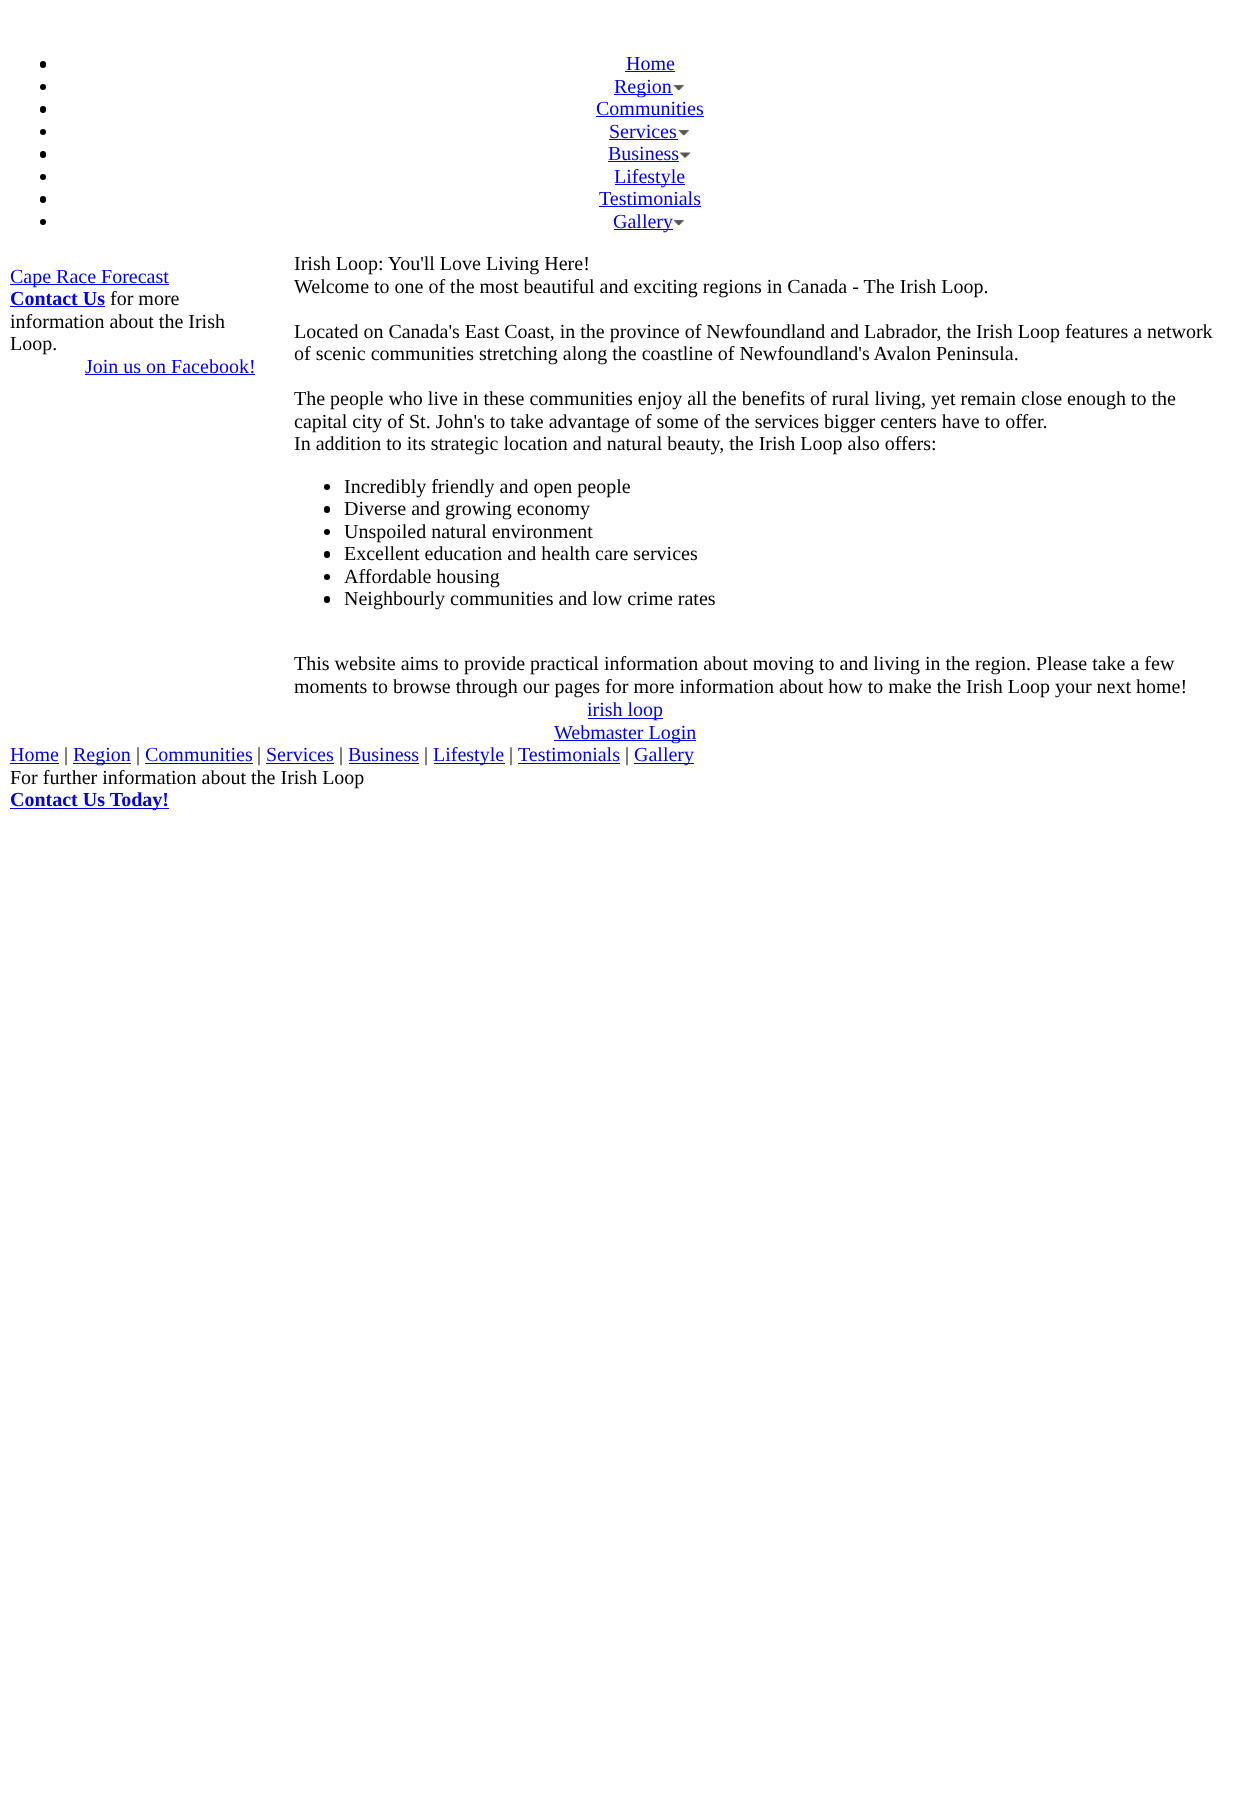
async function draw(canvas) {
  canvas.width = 1250
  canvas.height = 1815
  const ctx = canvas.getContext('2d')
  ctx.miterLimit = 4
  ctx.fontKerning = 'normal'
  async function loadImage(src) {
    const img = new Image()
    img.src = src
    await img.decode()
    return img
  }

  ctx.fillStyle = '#fff'
  ctx.fillRect(0, 0, 1250, 1815)
  ctx.fillStyle = '#000'
  ctx.beginPath()
  ctx.roundRect(40, 61, 6, 7, 3)
  ctx.fill()
  ctx.font = '20px Liberation Serif'
  ctx.fillStyle = '#00e'
  ctx.fillText('Home', 626, 70)
  ctx.fillRect(625, 71, 50, 1)
  ctx.fillStyle = '#000'
  ctx.beginPath()
  ctx.arc(43, 87, 3, 0, 2 * Math.PI)
  ctx.fill()
  ctx.fillStyle = '#00e'
  ctx.fillRect(614, 94, 59, 1)
  ctx.fillText('Region', 614, 93)
  ctx.drawImage(await loadImage('image0.png'), 673, 84, 11, 7)
  ctx.fillStyle = '#000'
  ctx.beginPath()
  ctx.roundRect(40, 106, 6, 7, 3)
  ctx.fill()
  ctx.fillStyle = '#00e'
  ctx.fillText('Communities', 596, 115)
  ctx.fillRect(596, 116, 108, 1)
  ctx.fillStyle = '#000'
  ctx.beginPath()
  ctx.arc(43, 132, 3, 0, 2 * Math.PI)
  ctx.fill()
  ctx.fillStyle = '#00e'
  ctx.fillText('Services', 609, 138)
  ctx.fillRect(609, 139, 69, 1)
  ctx.drawImage(await loadImage('image0.png'), 678, 129, 11, 7)
  ctx.fillStyle = '#000'
  ctx.beginPath()
  ctx.roundRect(40, 151, 6, 7, 3)
  ctx.fill()
  ctx.fillStyle = '#00e'
  ctx.fillText('Business', 608, 160)
  ctx.fillRect(608, 161, 71, 1)
  ctx.drawImage(await loadImage('image1.png'), 679, 152, 12, 6)
  ctx.fillStyle = '#000'
  ctx.beginPath()
  ctx.arc(43, 177, 3, 0, 2 * Math.PI)
  ctx.fill()
  ctx.fillStyle = '#00e'
  ctx.fillRect(615, 184, 70, 1)
  ctx.fillText('Lifestyle', 614, 183)
  ctx.fillStyle = '#000'
  ctx.beginPath()
  ctx.roundRect(40, 196, 6, 7, 3)
  ctx.fill()
  ctx.fillStyle = '#00e'
  ctx.fillText('Testimonials', 599, 205)
  ctx.fillRect(599, 206, 102, 1)
  ctx.fillStyle = '#000'
  ctx.beginPath()
  ctx.arc(43, 222, 3, 0, 2 * Math.PI)
  ctx.fill()
  ctx.fillStyle = '#00e'
  ctx.fillRect(614, 229, 59, 1)
  ctx.fillText('Gallery', 613, 228)
  ctx.drawImage(await loadImage('image2.png'), 673, 219, 11, 7)
  ctx.fillRect(10, 284, 159, 1)
  ctx.fillText('Cape Race Forecast', 10, 283)
  ctx.font = 'bold 20px Liberation Serif'
  ctx.fillText('Contact Us', 10, 305)
  ctx.fillRect(10, 306, 95, 1)
  ctx.font = '20px Liberation Serif'
  ctx.fillStyle = '#000'
  ctx.fillText('for more', 110, 305)
  ctx.fillText('information about the Irish', 10, 328)
  ctx.fillText('Loop.', 10, 350)
  ctx.fillStyle = '#00e'
  ctx.fillText('Join us on Facebook!', 85, 373)
  ctx.fillRect(85, 374, 170, 1)
  ctx.fillStyle = '#000'
  ctx.fillText('Irish Loop: You\'ll Love Living Here!', 294, 270)
  ctx.fillText('Welcome to one of the most beautiful and exciting regions in Canada - The Irish Loop.', 294, 293)
  ctx.fillText('Located on Canada\'s East Coast, in the province of Newfoundland and Labrador, the Irish Loop features a network', 294, 338)
  ctx.fillText('of scenic communities stretching along the coastline of Newfoundland\'s Avalon Peninsula.', 294, 360)
  ctx.fillText('The people who live in these communities enjoy all the benefits of rural living, yet remain close enough to the', 294, 405)
  ctx.fillText('capital city of St. John\'s to take advantage of some of the services bigger centers have to offer.', 294, 428)
  ctx.fillText('In addition to its strategic location and natural beauty, the Irish Loop also offers:', 294, 450)
  ctx.beginPath()
  ctx.arc(327, 487, 3, 0, 2 * Math.PI)
  ctx.fill()
  ctx.fillText('Incredibly friendly and open people', 344, 493)
  ctx.beginPath()
  ctx.roundRect(324, 506, 6, 7, 3)
  ctx.fill()
  ctx.fillText('Diverse and growing economy', 344, 515)
  ctx.beginPath()
  ctx.arc(327, 532, 3, 0, 2 * Math.PI)
  ctx.fill()
  ctx.fillText('Unspoiled natural environment', 344, 538)
  ctx.beginPath()
  ctx.roundRect(324, 551, 6, 7, 3)
  ctx.fill()
  ctx.fillText('Excellent education and health care services', 344, 560)
  ctx.beginPath()
  ctx.arc(327, 577, 3, 0, 2 * Math.PI)
  ctx.fill()
  ctx.fillText('Affordable housing', 344, 583)
  ctx.beginPath()
  ctx.roundRect(324, 596, 6, 7, 3)
  ctx.fill()
  ctx.fillText('Neighbourly communities and low crime rates', 344, 605)
  ctx.fillText('This website aims to provide practical information about moving to and living in the region. Please take a few', 294, 670)
  ctx.fillText('moments to browse through our pages for more information about how to make the Irish Loop your next home!', 294, 693)
  ctx.fillStyle = '#00e'
  ctx.fillRect(588, 718, 75, 1)
  ctx.fillText('irish loop', 587, 716)
  ctx.fillRect(554, 740, 142, 1)
  ctx.fillText('Webmaster Login', 554, 739)
  ctx.fillText('Home', 10, 761)
  ctx.fillRect(10, 763, 49, 1)
  ctx.fillStyle = '#000'
  ctx.fillText('|', 64, 761)
  ctx.fillStyle = '#00e'
  ctx.fillRect(73, 763, 58, 1)
  ctx.fillText('Region', 73, 761)
  ctx.fillStyle = '#000'
  ctx.fillText('|', 136, 761)
  ctx.fillStyle = '#00e'
  ctx.fillText('Communities', 145, 761)
  ctx.fillRect(145, 763, 108, 1)
  ctx.fillStyle = '#000'
  ctx.fillText('|', 257, 761)
  ctx.fillStyle = '#00e'
  ctx.fillText('Services', 266, 761)
  ctx.fillRect(266, 763, 68, 1)
  ctx.fillStyle = '#000'
  ctx.fillText('|', 339, 761)
  ctx.fillStyle = '#00e'
  ctx.fillText('Business', 348, 761)
  ctx.fillRect(349, 763, 70, 1)
  ctx.fillStyle = '#000'
  ctx.fillText('|', 424, 761)
  ctx.fillStyle = '#00e'
  ctx.fillRect(434, 763, 71, 1)
  ctx.fillText('Lifestyle', 433, 761)
  ctx.fillStyle = '#000'
  ctx.fillText('|', 509, 761)
  ctx.fillStyle = '#00e'
  ctx.fillText('Testimonials', 518, 761)
  ctx.fillRect(518, 763, 102, 1)
  ctx.fillStyle = '#000'
  ctx.fillText('|', 625, 761)
  ctx.fillStyle = '#00e'
  ctx.fillRect(634, 763, 60, 1)
  ctx.fillText('Gallery', 634, 761)
  ctx.fillStyle = '#000'
  ctx.fillText('For further information about the Irish Loop', 10, 784)
  ctx.fillStyle = '#00e'
  ctx.fillRect(10, 808, 159, 1)
  ctx.font = 'bold 20px Liberation Serif'
  ctx.fillText('Contact Us Today!', 10, 806)
}

draw(document.querySelector('canvas'))
